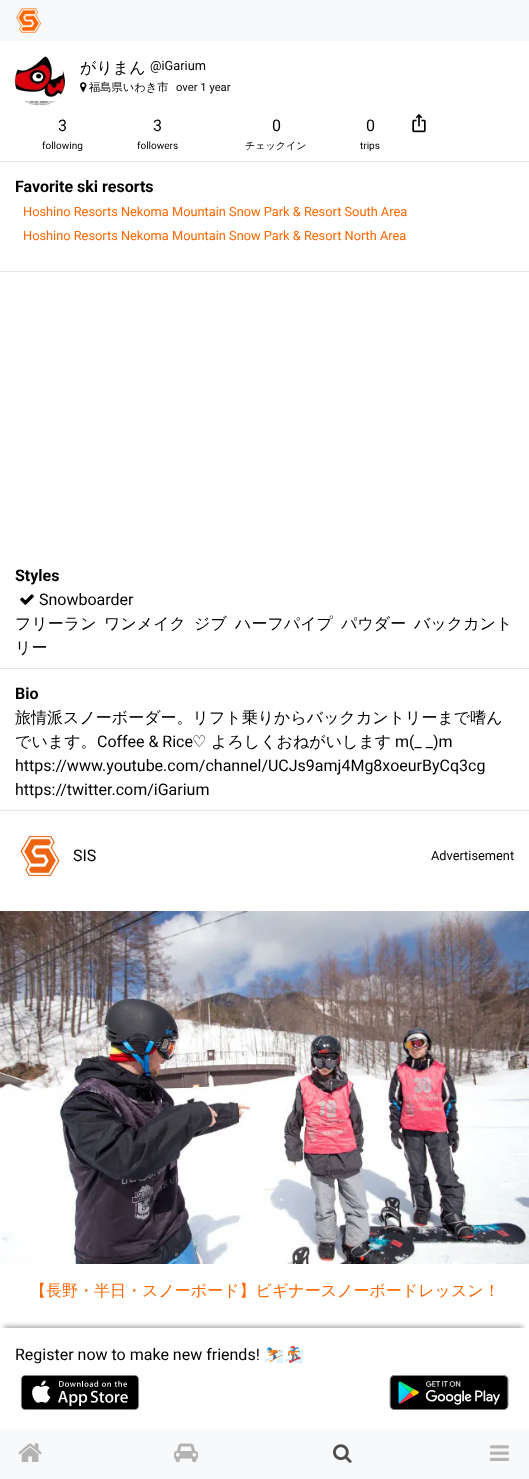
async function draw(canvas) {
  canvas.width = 529
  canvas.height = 1479
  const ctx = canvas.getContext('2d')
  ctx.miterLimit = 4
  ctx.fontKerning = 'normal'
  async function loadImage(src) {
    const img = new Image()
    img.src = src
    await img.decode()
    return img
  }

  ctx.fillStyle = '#fff'
  ctx.fillRect(0, 0, 529, 1479)
  ctx.fillStyle = '#f8f9fa'
  ctx.fillRect(0, 0, 529, 41)
  ctx.drawImage(await loadImage('image0.png'), 16, 8, 25, 25)
  ctx.fillStyle = '#f0f0f0'
  ctx.beginPath()
  ctx.arc(40, 81, 25, 0, 2 * Math.PI)
  ctx.fill()
  ctx.drawImage(await loadImage('image1.png'), 15, 56, 50, 50)
  ctx.font = '500 16px WenQuanYi Zen Hei'
  ctx.fillStyle = '#000'
  ctx.fillText('がりまん', 80, 73)
  ctx.font = '12.8px Roboto'
  ctx.fillText('@iGarium', 150, 70)
  ctx.drawImage(await loadImage('image2.png'), 80, 82, 7, 10)
  ctx.font = '500 11.25px WenQuanYi Zen Hei'
  ctx.fillText('福島県いわき市', 89, 91)
  ctx.font = '11.25px Roboto'
  ctx.fillText('over 1 year', 176, 91)
  ctx.fillStyle = '#e6e6e6'
  ctx.fillRect(0, 161, 529, 1)
  ctx.font = '16px Roboto'
  ctx.fillStyle = '#000'
  ctx.fillText('3', 58, 131)
  ctx.font = '10px Roboto'
  ctx.fillText('following', 42, 149)
  ctx.font = '16px Roboto'
  ctx.fillText('3', 153, 131)
  ctx.font = '10px Roboto'
  ctx.fillText('followers', 137, 149)
  ctx.font = '16px Roboto'
  ctx.fillText('0', 272, 131)
  ctx.font = '500 10px WenQuanYi Zen Hei'
  ctx.fillText('チェックイン', 245, 149)
  ctx.font = '16px Roboto'
  ctx.fillText('0', 366, 131)
  ctx.font = '10px Roboto'
  ctx.fillText('trips', 360, 149)
  ctx.drawImage(await loadImage('image3.png'), 412, 114, 14, 19)
  ctx.fillStyle = '#e6e6e6'
  ctx.fillRect(0, 271, 529, 1)
  ctx.font = 'bold 16px Roboto'
  ctx.fillStyle = '#000'
  ctx.fillText('Favorite ski resorts', 15, 192)
  ctx.font = '12.8px Roboto'
  ctx.fillStyle = '#f60'
  ctx.fillText('Hoshino Resorts Nekoma Mountain Snow Park & Resort South Area', 23, 216)
  ctx.fillText('Hoshino Resorts Nekoma Mountain Snow Park & Resort North Area', 23, 240)
  ctx.fillStyle = '#e6e6e6'
  ctx.fillRect(0, 668, 529, 1)
  ctx.font = 'bold 16px Roboto'
  ctx.fillStyle = '#000'
  ctx.fillText('Styles', 15, 581)
  ctx.drawImage(await loadImage('image4.png'), 20, 594, 14, 11)
  ctx.font = '16px Roboto'
  ctx.fillText('Snowboarder', 39, 605)
  ctx.font = '500 16px WenQuanYi Zen Hei'
  ctx.fillText('フリーラン', 15, 629)
  ctx.fillText('ワンメイク', 104, 629)
  ctx.fillText('ジブ', 194, 629)
  ctx.fillText('ハーフパイプ', 235, 629)
  ctx.fillText('パウダー', 341, 629)
  ctx.fillText('バックカント', 414, 629)
  ctx.fillText('リー', 15, 653)
  ctx.fillStyle = '#e6e6e6'
  ctx.fillRect(0, 810, 529, 1)
  ctx.font = 'bold 16px Roboto'
  ctx.fillStyle = '#000'
  ctx.fillText('Bio', 15, 699)
  ctx.font = '500 16px WenQuanYi Zen Hei'
  ctx.fillText('旅情派スノーボーダー。リフト乗りからバックカントリーまで嗜ん', 15, 723)
  ctx.fillText('でいます。', 15, 747)
  ctx.font = '16px Roboto'
  ctx.fillText('Coffee & Rice', 97, 747)
  ctx.font = '16px DejaVu Sans'
  ctx.fillText('♡', 192, 747)
  ctx.font = '500 16px WenQuanYi Zen Hei'
  ctx.fillText('よろしくおねがいします', 211, 747)
  ctx.font = '16px Roboto'
  ctx.fillText('m(_ _)m', 395, 747)
  ctx.fillText('https://www.youtube.com/channel/UCJs9amj4Mg8xoeurByCq3cg', 15, 771)
  ctx.fillText('https://twitter.com/iGarium', 15, 795)
  ctx.fillStyle = '#f0f0f0'
  ctx.beginPath()
  ctx.arc(40, 856, 25, 0, 2 * Math.PI)
  ctx.fill()
  ctx.drawImage(await loadImage('image5.png'), 15, 831, 50, 50)
  ctx.fillStyle = '#000'
  ctx.fillText('SIS', 73, 861)
  ctx.font = '12.8px Roboto'
  ctx.fillText('Advertisement', 431, 860)
  ctx.drawImage(await loadImage('image6.png'), 0, 911, 529, 353)
  ctx.font = '500 16px WenQuanYi Zen Hei'
  ctx.fillStyle = '#f60'
  ctx.fillText('【長野・半日・スノーボード】ビギナースノーボードレッスン！', 30, 1296)
  ctx.save()
  ctx.beginPath()
  ctx.rect(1, 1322, 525, 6)
  ctx.clip()
  ctx.fillStyle = '#00000054'
  ctx.filter = 'blur(2.5px)'
  ctx.beginPath()
  ctx.rect(4, 1326, 519, 95)
  ctx.fill()
  ctx.filter = 'none'
  ctx.restore()
  ctx.font = '16px Roboto'
  ctx.fillStyle = '#000'
  ctx.fillText('Register now to make new friends!', 15, 1360)
  ctx.font = '16px Noto Color Emoji'
  ctx.fillText('⛷️🏂', 264, 1360)
  ctx.drawImage(await loadImage('image7.png'), 20, 1375, 120, 35)
  ctx.drawImage(await loadImage('image8.png'), 389, 1375, 120, 35)
  ctx.fillStyle = '#f8f9fa'
  ctx.fillRect(0, 1429, 529, 50)
  ctx.drawImage(await loadImage('image9.png'), 18, 1443, 24, 19)
  ctx.drawImage(await loadImage('image10.png'), 174, 1443, 24, 20)
  ctx.drawImage(await loadImage('image11.png'), 333, 1444, 19, 19)
  ctx.drawImage(await loadImage('image12.png'), 490, 1445, 19, 16)
}

draw(document.querySelector('canvas'))
